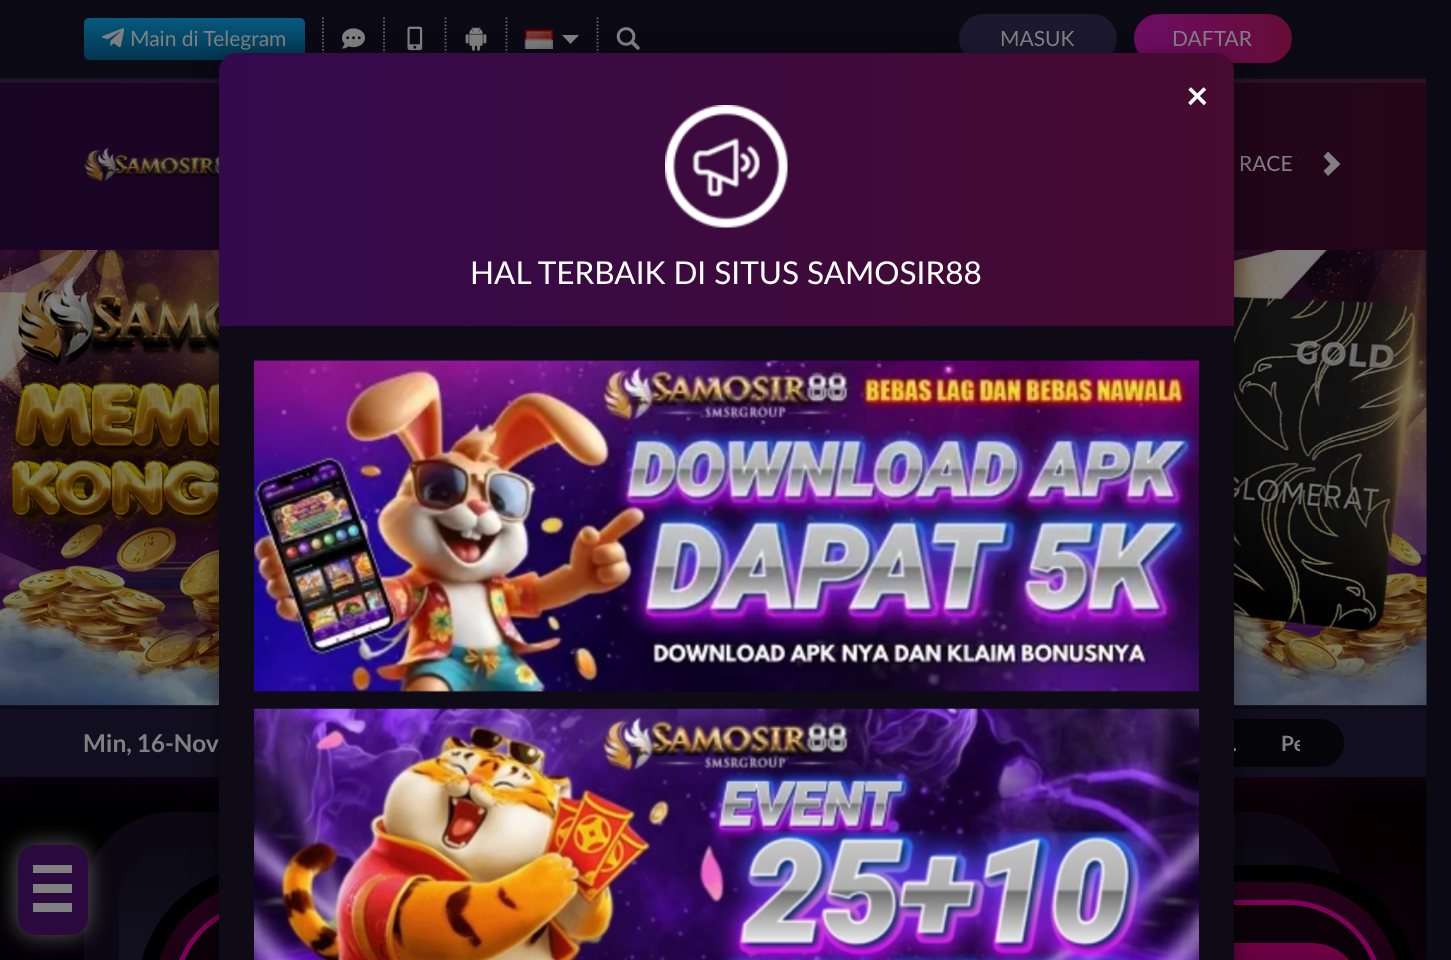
async function draw(canvas) {
  canvas.width = 1451
  canvas.height = 960
  const ctx = canvas.getContext('2d')
  ctx.miterLimit = 4
  ctx.fontKerning = 'normal'
  async function loadImage(src) {
    const img = new Image()
    img.src = src
    await img.decode()
    return img
  }
  let gradient

  ctx.fillStyle = '#0b0914'
  ctx.fillRect(0, 0, 1451, 960)
  ctx.fillStyle = '#0c0e1a'
  ctx.fillRect(0, 77, 1426, 2)
  gradient = ctx.createLinearGradient(194, 17, 194, 60)
  gradient.addColorStop(0, '#065a80')
  gradient.addColorStop(1, '#023650')
  ctx.fillStyle = gradient
  ctx.beginPath()
  ctx.roundRect(84, 18, 221, 42, 5)
  ctx.fill()
  ctx.drawImage(await loadImage('image0.png'), 102, 28, 22, 20)
  ctx.font = '21px Lato'
  ctx.fillStyle = '#808080'
  ctx.fillText('Main di Telegram', 130, 46)
  ctx.beginPath()
  ctx.moveTo(323, 17.5)
  ctx.lineTo(323, 59.5)
  ctx.moveTo(384, 17.5)
  ctx.lineTo(384, 59.5)
  ctx.strokeStyle = '#666'
  ctx.lineWidth = 1.8
  ctx.setLineDash([1.75, 1.75])
  ctx.stroke()
  ctx.drawImage(await loadImage('image1.png'), 342, 28, 23, 21)
  ctx.drawImage(await loadImage('image2.png'), 407, 26, 16, 25)
  ctx.beginPath()
  ctx.moveTo(445.5, 17.5)
  ctx.lineTo(445.5, 59.5)
  ctx.stroke()
  ctx.drawImage(await loadImage('image3.png'), 465, 26, 22, 25)
  ctx.beginPath()
  ctx.moveTo(506.5, 17.5)
  ctx.lineTo(506.5, 59.5)
  ctx.stroke()
  ctx.drawImage(await loadImage('image4.png'), 524, 29, 29, 20)
  ctx.beginPath()
  ctx.moveTo(562, 35)
  ctx.lineTo(579, 35)
  ctx.lineTo(570.5, 44)
  ctx.closePath()
  ctx.fill()
  ctx.beginPath()
  ctx.moveTo(597.5, 17.5)
  ctx.lineTo(597.5, 59.5)
  ctx.stroke()
  ctx.drawImage(await loadImage('image5.png'), 616, 27, 24, 23)
  ctx.fillStyle = '#1b182f'
  ctx.beginPath()
  ctx.roundRect(959, 14, 158, 49, 24.5)
  ctx.fill()
  ctx.fillStyle = '#808080'
  ctx.fillText('MASUK', 1000, 46)
  gradient = ctx.createLinearGradient(1134, 39, 1292, 38)
  gradient.addColorStop(0, '#6e0d66')
  gradient.addColorStop(1, '#650c36')
  ctx.fillStyle = gradient
  ctx.beginPath()
  ctx.roundRect(1134, 14, 158, 49, 24.5)
  ctx.fill()
  ctx.fillStyle = '#808080'
  ctx.fillText('DAFTAR', 1172, 46)
  gradient = ctx.createLinearGradient(0, 165, 1426, 164)
  gradient.addColorStop(0, '#190526')
  gradient.addColorStop(1, '#240518')
  ctx.fillStyle = gradient
  ctx.fillRect(0, 83, 1426, 167)
  gradient = ctx.createLinearGradient(0, 165, 1426, 164)
  gradient.addColorStop(0, '#24122f')
  gradient.addColorStop(1, '#2d1223')
  ctx.fillStyle = gradient
  ctx.fillRect(0, 79, 1426, 4)
  ctx.drawImage(await loadImage('image6.png'), 83, 148, 136, 34)
  ctx.fillStyle = '#808080'
  ctx.fillText('RACE', 1239, 171)
  ctx.save()
  ctx.beginPath()
  ctx.rect(303, 79, 997, 171)
  ctx.clip()
  ctx.beginPath()
  ctx.moveTo(1310, 169.5)
  ctx.lineTo(1320, 159.5)
  ctx.lineTo(1316, 155.5)
  ctx.lineTo(1310, 161.5)
  ctx.lineTo(1303.5, 155.5)
  ctx.lineTo(1299.5, 159.5)
  ctx.closePath()
  ctx.fill()
  ctx.restore()
  ctx.beginPath()
  ctx.moveTo(1328, 176)
  ctx.lineTo(1323.5, 171)
  ctx.lineTo(1330.5, 164)
  ctx.lineTo(1323.5, 156.5)
  ctx.lineTo(1328, 151.5)
  ctx.lineTo(1340.5, 164)
  ctx.closePath()
  ctx.fill()
  ctx.drawImage(await loadImage('image10.png'), 0, 250, 1427, 456)
  ctx.fillStyle = '#110e1f'
  ctx.fillRect(0, 709, 1426, 68)
  ctx.fillStyle = '#050408'
  ctx.beginPath()
  ctx.roundRect(462, 719, 882, 48, 24)
  ctx.fill()
  ctx.drawImage(await loadImage('image11.png'), 0, 777, 1427, 183)
  ctx.fillStyle = '#0d0814e6'
  ctx.beginPath()
  ctx.roundRect(84, 812, 1260, 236, 88)
  ctx.fill()
  gradient = ctx.createLinearGradient(714, 847, 714, 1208)
  gradient.addColorStop(0, '#0b0914')
  gradient.addColorStop(0.5, '#171327')
  gradient.addColorStop(1, '#0b0914')
  ctx.fillStyle = gradient
  ctx.beginPath()
  ctx.roundRect(119, 847, 1190, 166, 53)
  ctx.fill()
  ctx.fillStyle = '#000'
  ctx.beginPath()
  ctx.roundRect(137, 865, 1282, 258, 162.5)
  ctx.fill()
  gradient = ctx.createLinearGradient(778, 882, 778, 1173)
  gradient.addColorStop(0, '#27001b')
  gradient.addColorStop(1, '#000')
  ctx.fillStyle = gradient
  ctx.beginPath()
  ctx.roundRect(154, 882, 1248, 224, 145.5)
  ctx.fill()
  ctx.fillStyle = '#00000099'
  ctx.beginPath()
  ctx.roundRect(174.5, 902.5, 1207, 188, 125)
  ctx.fill()
  ctx.strokeStyle = '#80005c'
  ctx.lineWidth = 5
  ctx.setLineDash([])
  ctx.stroke()
  gradient = ctx.createLinearGradient(985, 943, 985, 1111)
  gradient.addColorStop(0, '#710046')
  gradient.addColorStop(1, '#000')
  ctx.fillStyle = gradient
  ctx.beginPath()
  ctx.roundRect(609, 943, 753, 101, 84)
  ctx.fill()
  ctx.fillStyle = '#00000080'
  ctx.filter = 'blur(13px)'
  ctx.beginPath()
  ctx.roundRect(219, 61, 1015, 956, 18)
  ctx.fill()
  ctx.filter = 'none'
  gradient = ctx.createLinearGradient(219, 189, 1234, 189)
  gradient.addColorStop(0, '#320a4c')
  gradient.addColorStop(1, '#470a30')
  ctx.fillStyle = gradient
  ctx.beginPath()
  ctx.roundRect(219, 53, 1015, 273, [18, 18, 0, 0])
  ctx.fill()
  ctx.font = 'bold 37px "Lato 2"'
  ctx.fillStyle = '#fff'
  ctx.fillText('×', 1186, 109)
  ctx.drawImage(await loadImage('image7.png'), 665, 105, 123, 123)
  ctx.font = '31.5px Lato'
  ctx.fillText('HAL TERBAIK DI SITUS SAMOSIR88', 470, 284)
  ctx.font = 'bold 21px Lato'
  ctx.fillStyle = '#808080'
  ctx.fillText('.', 1232, 751)
  ctx.fillStyle = '#0e0b16'
  ctx.fillRect(219, 326, 1015, 634)
  ctx.drawImage(await loadImage('image8.png'), 254, 359, 945, 333)
  ctx.drawImage(await loadImage('image9.png'), 254, 708, 945, 252)
  ctx.font = 'bold 24.5px Lato'
  ctx.fillStyle = '#808080'
  ctx.fillText('Min, 16-Nov', 83, 752)
  ctx.save()
  ctx.beginPath()
  ctx.rect(506, 728, 794, 30)
  ctx.clip()
  ctx.font = 'bold 21px Lato'
  ctx.fillText('Pe', 1281, 751)
  ctx.restore()
  ctx.fillStyle = '#75726fb3'
  ctx.filter = 'blur(10.5px)'
  ctx.beginPath()
  ctx.roundRect(16, 844, 73, 92, 19)
  ctx.fill()
  ctx.filter = 'none'
  ctx.fillStyle = '#2b093f'
  ctx.beginPath()
  ctx.roundRect(18, 845, 70, 90, 18)
  ctx.fill()
  ctx.fillStyle = '#808080'
  ctx.fillRect(33, 865, 39, 8)
  ctx.fillRect(33, 884, 39, 9)
  ctx.fillRect(33, 903, 39, 9)
}

draw(document.querySelector('canvas'))
